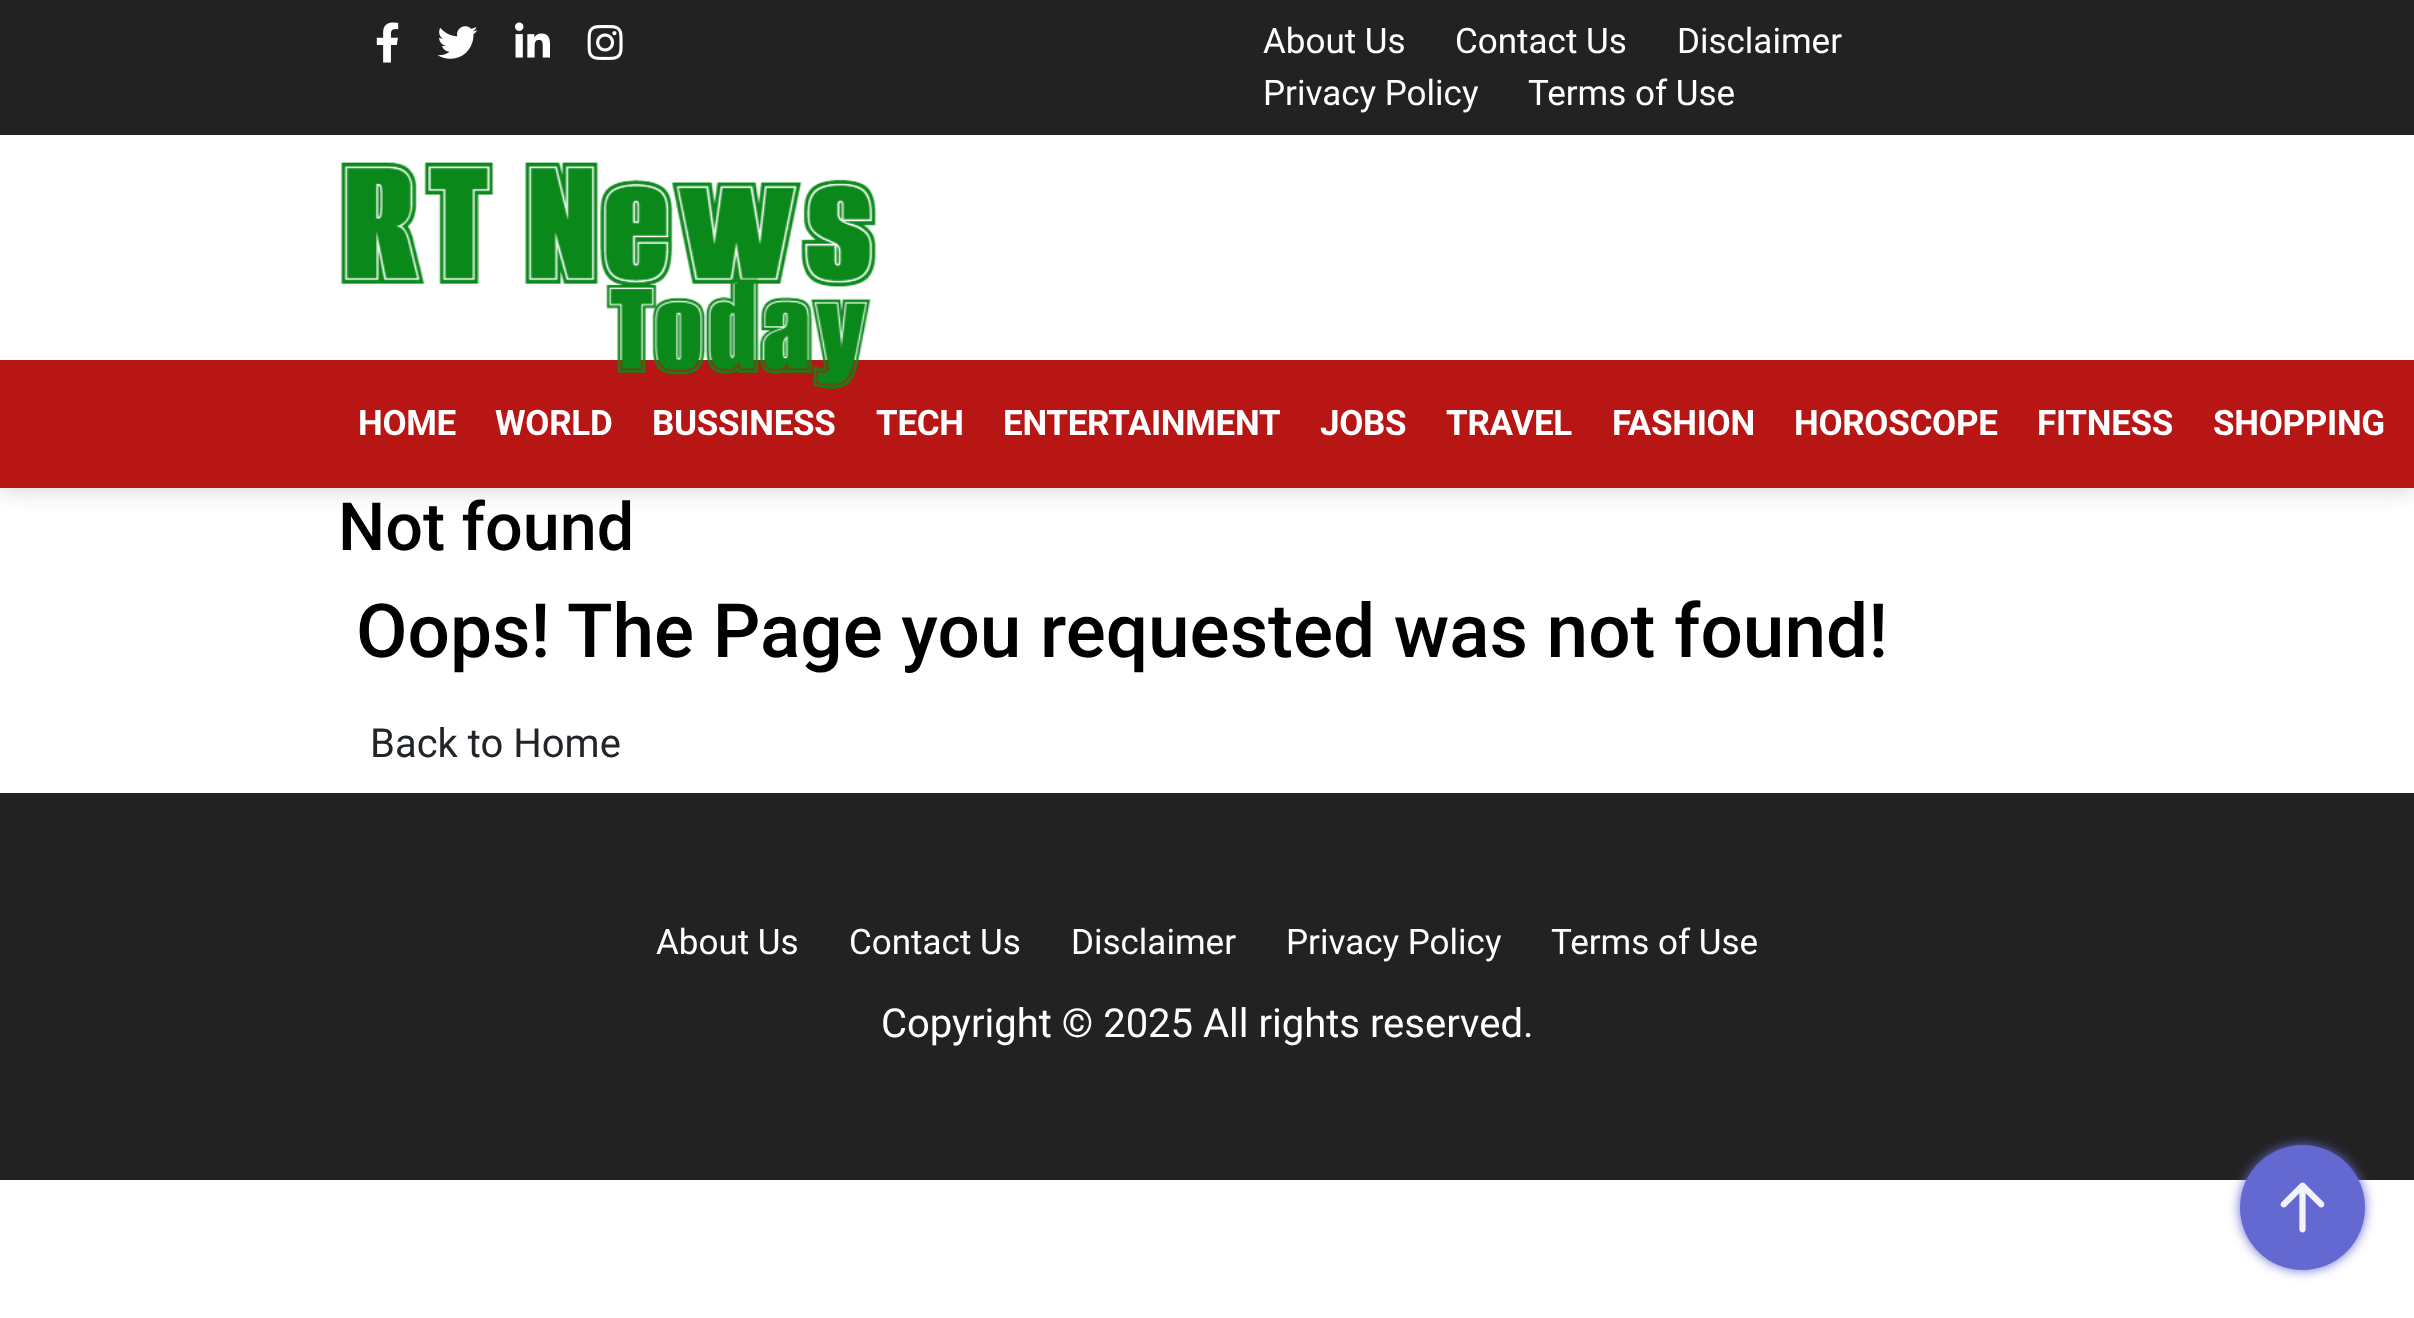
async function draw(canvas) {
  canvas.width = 2414
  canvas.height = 1318
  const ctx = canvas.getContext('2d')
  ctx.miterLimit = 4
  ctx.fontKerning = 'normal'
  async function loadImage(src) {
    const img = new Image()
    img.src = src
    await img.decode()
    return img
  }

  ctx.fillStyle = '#fff'
  ctx.fillRect(0, 0, 2414, 1318)
  ctx.save()
  ctx.beginPath()
  ctx.rect(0, 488, 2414, 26)
  ctx.clip()
  ctx.fillStyle = '#ccc'
  ctx.filter = 'blur(12.5px)'
  ctx.beginPath()
  ctx.rect(0, 0, 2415, 488)
  ctx.fill()
  ctx.filter = 'none'
  ctx.restore()
  ctx.fillStyle = '#222'
  ctx.fillRect(0, 0, 2414, 135)
  ctx.drawImage(await loadImage('image0.png'), 376, 22, 23, 41)
  ctx.drawImage(await loadImage('image1.png'), 437, 26, 41, 33)
  ctx.drawImage(await loadImage('image2.png'), 515, 22, 35, 36)
  ctx.drawImage(await loadImage('image3.png'), 587, 25, 36, 35)
  ctx.font = '35px Roboto'
  ctx.fillStyle = '#fff'
  ctx.fillText('About Us', 1263, 53)
  ctx.fillText('Contact Us', 1455, 53)
  ctx.fillText('Disclaimer', 1677, 53)
  ctx.fillText('Privacy Policy', 1263, 105)
  ctx.fillText('Terms of Use', 1528, 105)
  ctx.fillStyle = '#b81515'
  ctx.fillRect(0, 360, 2414, 128)
  ctx.drawImage(await loadImage('image4.png'), 340, 162, 537, 227)
  ctx.letterSpacing = '-0.3px'
  ctx.font = 'bold 35px Roboto'
  ctx.fillStyle = '#fff'
  ctx.fillText('HOME', 358, 435)
  ctx.fillText('WORLD', 495, 435)
  ctx.fillText('BUSSINESS', 652, 435)
  ctx.fillText('TECH', 876, 435)
  ctx.fillText('ENTERTAINMENT', 1003, 435)
  ctx.fillText('JOBS', 1320, 435)
  ctx.fillText('TRAVEL', 1446, 435)
  ctx.fillText('FASHION', 1612, 435)
  ctx.fillText('HOROSCOPE', 1794, 435)
  ctx.fillText('FITNESS', 2037, 435)
  ctx.fillText('SHOPPING', 2213, 435)
  ctx.letterSpacing = '0px'
  ctx.font = '500 66.5px Roboto'
  ctx.fillStyle = '#000'
  ctx.fillText('Not found', 338, 550)
  ctx.font = '500 74.75px Roboto'
  ctx.fillText('Oops! The Page you requested was not found!', 356, 657)
  ctx.font = '40px Roboto'
  ctx.fillStyle = '#212529'
  ctx.fillText('Back to Home', 370, 757)
  ctx.fillStyle = '#222'
  ctx.fillRect(0, 793, 2414, 387)
  ctx.font = '35px Roboto'
  ctx.fillStyle = '#fff'
  ctx.fillText('About Us', 656, 954)
  ctx.fillText('Contact Us', 849, 954)
  ctx.fillText('Disclaimer', 1071, 954)
  ctx.fillText('Privacy Policy', 1286, 954)
  ctx.fillText('Terms of Use', 1551, 954)
  ctx.font = '40px Roboto'
  ctx.fillText('Copyright © 2025 All rights reserved.', 881, 1037)
  ctx.fillStyle = '#6369d1'
  ctx.filter = 'blur(6px)'
  ctx.beginPath()
  ctx.roundRect(2240, 1145, 125, 125, 62.5)
  ctx.fill()
  ctx.filter = 'none'
  ctx.beginPath()
  ctx.arc(2302.5, 1207.5, 62.5, 0, 2 * Math.PI)
  ctx.fill()
  ctx.drawImage(await loadImage('image5.png'), 2280, 1182, 45, 51)
}

draw(document.querySelector('canvas'))
